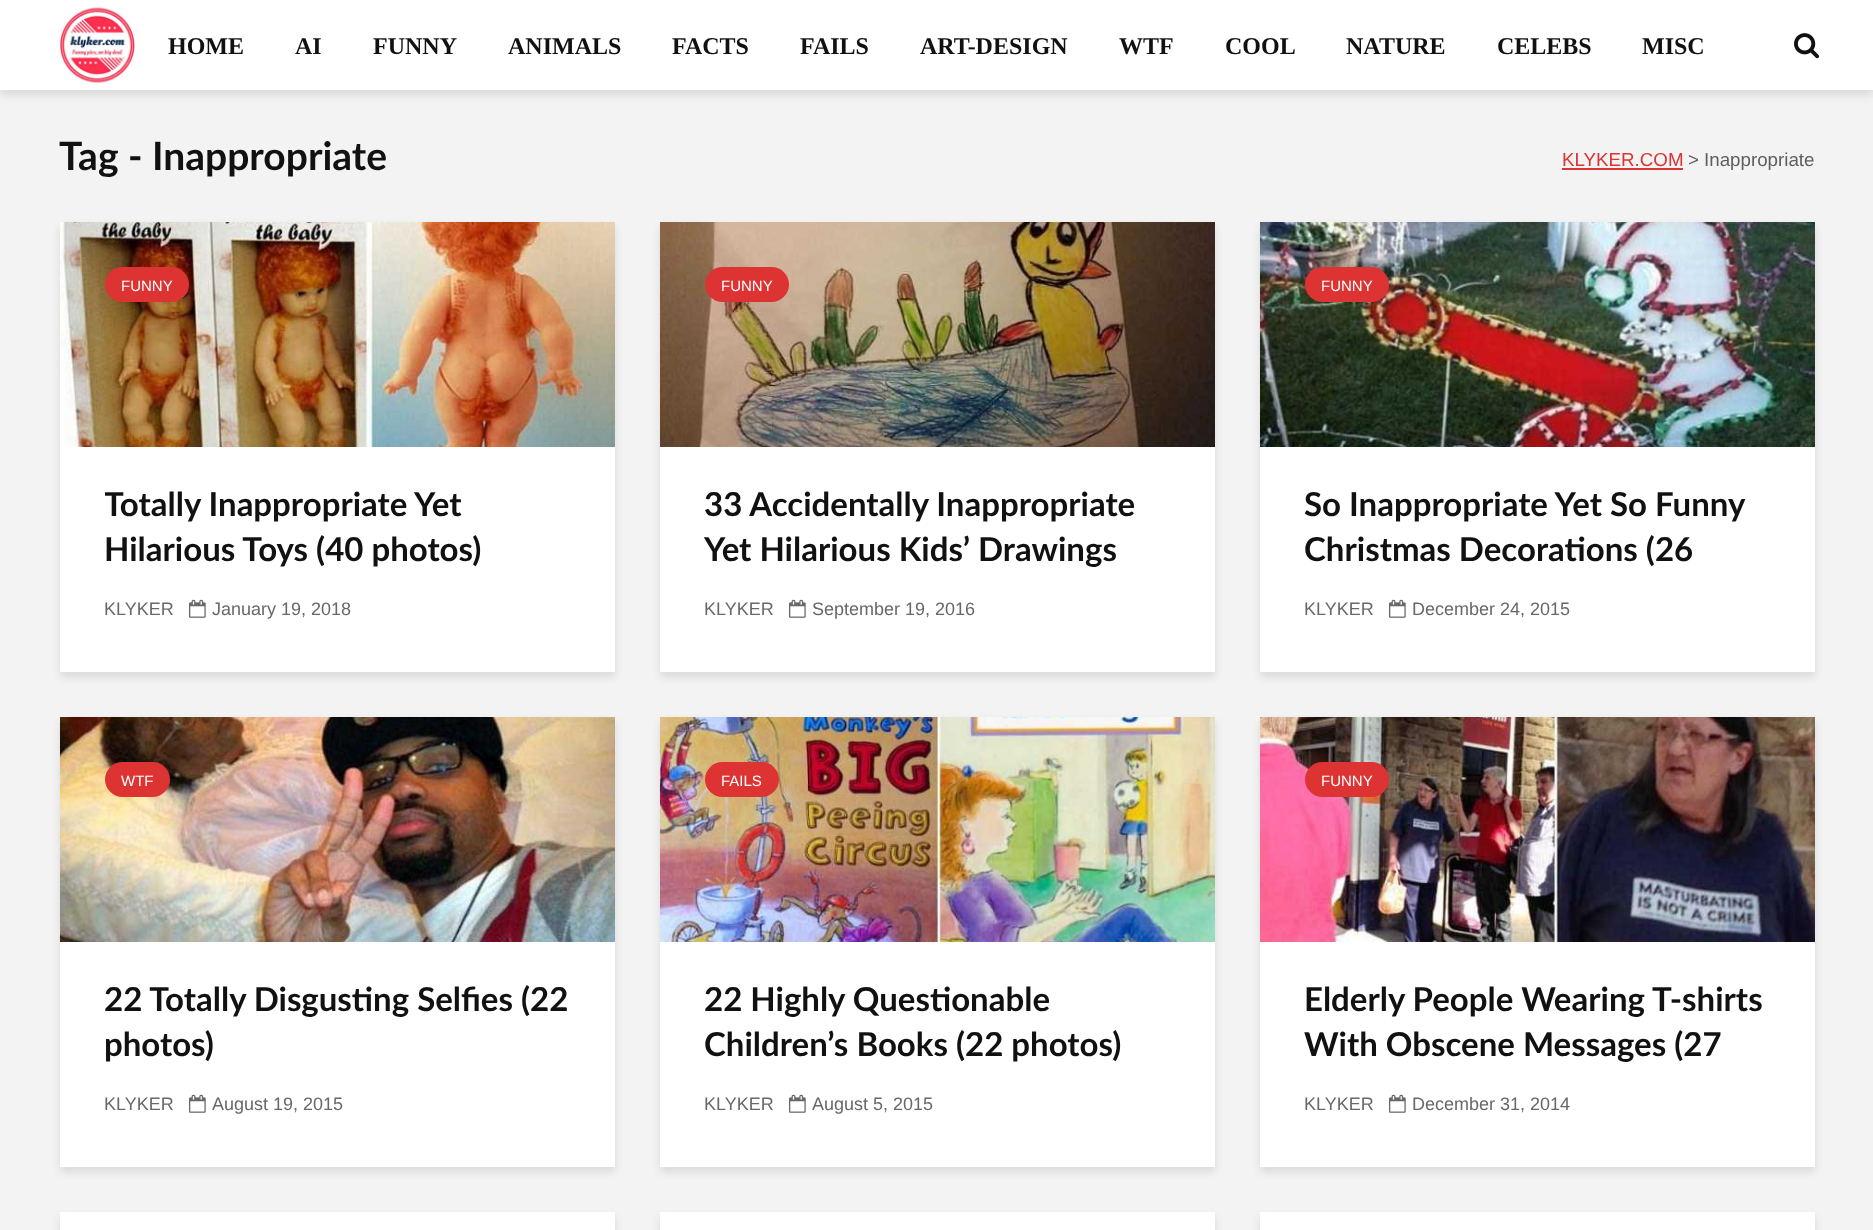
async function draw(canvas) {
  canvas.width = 1873
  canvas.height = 1230
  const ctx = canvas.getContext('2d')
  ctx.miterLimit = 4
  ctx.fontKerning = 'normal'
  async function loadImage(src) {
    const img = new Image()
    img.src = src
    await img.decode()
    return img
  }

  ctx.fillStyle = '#f3f3f3'
  ctx.fillRect(0, 0, 1873, 1230)
  ctx.fillStyle = '#0001011a'
  ctx.filter = 'blur(4px)'
  ctx.beginPath()
  ctx.rect(0, 5, 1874, 90)
  ctx.fill()
  ctx.filter = 'none'
  ctx.fillStyle = '#fff'
  ctx.fillRect(0, 0, 1873, 90)
  ctx.drawImage(await loadImage('image0.png'), 60, 7, 75, 76)
  ctx.font = 'bold 24px Liberation Serif'
  ctx.fillStyle = '#111'
  ctx.fillText('HOME', 168, 54)
  ctx.fillText('AI', 295, 54)
  ctx.fillText('FUNNY', 373, 54)
  ctx.fillText('ANIMALS', 508, 54)
  ctx.fillText('FACTS', 672, 54)
  ctx.fillText('FAILS', 800, 54)
  ctx.fillText('ART-DESIGN', 920, 54)
  ctx.fillText('WTF', 1119, 54)
  ctx.fillText('COOL', 1225, 54)
  ctx.fillText('NATURE', 1346, 54)
  ctx.fillText('CELEBS', 1497, 54)
  ctx.fillText('MISC', 1642, 54)
  ctx.drawImage(await loadImage('image1.png'), 1794, 33, 26, 26)
  ctx.font = 'bold 39px Lato'
  ctx.fillText('Tag - Inappropriate', 59, 170)
  ctx.font = '18.75px Liberation Sans'
  ctx.fillStyle = '#d33'
  ctx.fillText('KLYKER.COM', 1562, 166)
  ctx.fillRect(1562, 168, 121, 2)
  ctx.fillStyle = '#5e5e5e'
  ctx.fillText('>', 1688, 166)
  ctx.fillText('Inappropriate', 1704, 166)
  ctx.fillStyle = '#0001011a'
  ctx.filter = 'blur(4px)'
  ctx.beginPath()
  ctx.rect(60, 227, 555, 450)
  ctx.fill()
  ctx.filter = 'none'
  ctx.fillStyle = '#fff'
  ctx.fillRect(60, 447, 555, 225)
  ctx.drawImage(await loadImage('image2.png'), 60, 222, 555, 225)
  ctx.fillStyle = '#d33'
  ctx.beginPath()
  ctx.roundRect(105, 267, 84, 35, 17.5)
  ctx.fill()
  ctx.font = '15px Liberation Sans'
  ctx.fillStyle = '#fff'
  ctx.fillText('FUNNY', 121, 291)
  ctx.save()
  ctx.beginPath()
  ctx.rect(105, 482, 465, 105)
  ctx.clip()
  ctx.font = 'bold 33px Lato'
  ctx.fillStyle = '#111'
  ctx.fillText('Totally Inappropriate Yet', 104, 516)
  ctx.restore()
  ctx.font = 'bold 33px Lato'
  ctx.fillStyle = '#111'
  ctx.fillText('Hilarious Toys (40 photos)', 104, 561)
  ctx.font = '18px Liberation Sans'
  ctx.fillStyle = '#686868'
  ctx.fillText('KLYKER', 104, 615)
  ctx.drawImage(await loadImage('image3.png'), 189, 599, 17, 19)
  ctx.fillText('January 19, 2018', 212, 615)
  ctx.fillStyle = '#0001011a'
  ctx.filter = 'blur(4px)'
  ctx.beginPath()
  ctx.rect(660, 227, 555, 450)
  ctx.fill()
  ctx.filter = 'none'
  ctx.fillStyle = '#fff'
  ctx.fillRect(660, 447, 555, 225)
  ctx.drawImage(await loadImage('image4.png'), 660, 222, 555, 225)
  ctx.fillStyle = '#d33'
  ctx.beginPath()
  ctx.roundRect(705, 267, 84, 35, 17.5)
  ctx.fill()
  ctx.font = '15px Liberation Sans'
  ctx.fillStyle = '#fff'
  ctx.fillText('FUNNY', 721, 291)
  ctx.font = 'bold 33px Lato'
  ctx.fillStyle = '#111'
  ctx.fillText('33 Accidentally Inappropriate', 704, 516)
  ctx.fillText('Yet Hilarious Kids’ Drawings', 704, 561)
  ctx.font = '18px Liberation Sans'
  ctx.fillStyle = '#686868'
  ctx.fillText('KLYKER', 704, 615)
  ctx.drawImage(await loadImage('image3.png'), 789, 599, 17, 19)
  ctx.fillText('September 19, 2016', 812, 615)
  ctx.fillStyle = '#0001011a'
  ctx.filter = 'blur(4px)'
  ctx.beginPath()
  ctx.rect(1260, 227, 555, 450)
  ctx.fill()
  ctx.filter = 'none'
  ctx.fillStyle = '#fff'
  ctx.fillRect(1260, 447, 555, 225)
  ctx.drawImage(await loadImage('image5.png'), 1260, 222, 555, 225)
  ctx.fillStyle = '#d33'
  ctx.beginPath()
  ctx.roundRect(1305, 267, 84, 35, 17.5)
  ctx.fill()
  ctx.font = '15px Liberation Sans'
  ctx.fillStyle = '#fff'
  ctx.fillText('FUNNY', 1321, 291)
  ctx.font = 'bold 33px Lato'
  ctx.fillStyle = '#111'
  ctx.fillText('So Inappropriate Yet So Funny', 1304, 516)
  ctx.fillText('Christmas Decorations (26', 1304, 561)
  ctx.font = '18px Liberation Sans'
  ctx.fillStyle = '#686868'
  ctx.fillText('KLYKER', 1304, 615)
  ctx.drawImage(await loadImage('image3.png'), 1389, 599, 17, 19)
  ctx.fillText('December 24, 2015', 1412, 615)
  ctx.fillStyle = '#0001011a'
  ctx.filter = 'blur(4px)'
  ctx.beginPath()
  ctx.rect(60, 722, 555, 450)
  ctx.fill()
  ctx.filter = 'none'
  ctx.fillStyle = '#fff'
  ctx.fillRect(60, 942, 555, 225)
  ctx.drawImage(await loadImage('image6.png'), 60, 717, 555, 225)
  ctx.fillStyle = '#d33'
  ctx.beginPath()
  ctx.roundRect(105, 762, 65, 35, 17.5)
  ctx.fill()
  ctx.font = '15px Liberation Sans'
  ctx.fillStyle = '#fff'
  ctx.fillText('WTF', 121, 786)
  ctx.font = 'bold 33px Lato'
  ctx.fillStyle = '#111'
  ctx.fillText('22 Totally Disgusting Selfies (22', 104, 1011)
  ctx.fillText('photos)', 104, 1056)
  ctx.font = '18px Liberation Sans'
  ctx.fillStyle = '#686868'
  ctx.fillText('KLYKER', 104, 1110)
  ctx.drawImage(await loadImage('image3.png'), 189, 1094, 17, 19)
  ctx.fillText('August 19, 2015', 212, 1110)
  ctx.fillStyle = '#0001011a'
  ctx.filter = 'blur(4px)'
  ctx.beginPath()
  ctx.rect(660, 722, 555, 450)
  ctx.fill()
  ctx.filter = 'none'
  ctx.fillStyle = '#fff'
  ctx.fillRect(660, 942, 555, 225)
  ctx.drawImage(await loadImage('image7.png'), 660, 717, 555, 225)
  ctx.fillStyle = '#d33'
  ctx.beginPath()
  ctx.roundRect(705, 762, 74, 35, 17.5)
  ctx.fill()
  ctx.font = '15px Liberation Sans'
  ctx.fillStyle = '#fff'
  ctx.fillText('FAILS', 721, 786)
  ctx.font = 'bold 33px Lato'
  ctx.fillStyle = '#111'
  ctx.fillText('22 Highly Questionable', 704, 1011)
  ctx.fillText('Children’s Books (22 photos)', 704, 1056)
  ctx.font = '18px Liberation Sans'
  ctx.fillStyle = '#686868'
  ctx.fillText('KLYKER', 704, 1110)
  ctx.drawImage(await loadImage('image3.png'), 789, 1094, 17, 19)
  ctx.fillText('August 5, 2015', 812, 1110)
  ctx.fillStyle = '#0001011a'
  ctx.filter = 'blur(4px)'
  ctx.beginPath()
  ctx.rect(1260, 722, 555, 450)
  ctx.fill()
  ctx.filter = 'none'
  ctx.fillStyle = '#fff'
  ctx.fillRect(1260, 942, 555, 225)
  ctx.drawImage(await loadImage('image8.png'), 1260, 717, 555, 225)
  ctx.fillStyle = '#d33'
  ctx.beginPath()
  ctx.roundRect(1305, 762, 84, 35, 17.5)
  ctx.fill()
  ctx.font = '15px Liberation Sans'
  ctx.fillStyle = '#fff'
  ctx.fillText('FUNNY', 1321, 786)
  ctx.font = 'bold 33px Lato'
  ctx.fillStyle = '#111'
  ctx.fillText('Elderly People Wearing T-shirts', 1304, 1011)
  ctx.fillText('With Obscene Messages (27', 1304, 1056)
  ctx.font = '18px Liberation Sans'
  ctx.fillStyle = '#686868'
  ctx.fillText('KLYKER', 1304, 1110)
  ctx.drawImage(await loadImage('image3.png'), 1389, 1094, 17, 19)
  ctx.fillText('December 31, 2014', 1412, 1110)
  ctx.fillStyle = '#0001011a'
  ctx.filter = 'blur(4px)'
  ctx.beginPath()
  ctx.rect(60, 1217, 555, 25)
  ctx.fill()
  ctx.filter = 'none'
  ctx.fillStyle = '#fff'
  ctx.fillRect(60, 1212, 555, 18)
  ctx.fillStyle = '#0001011a'
  ctx.filter = 'blur(4px)'
  ctx.beginPath()
  ctx.rect(660, 1217, 555, 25)
  ctx.fill()
  ctx.filter = 'none'
  ctx.fillStyle = '#fff'
  ctx.fillRect(660, 1212, 555, 18)
  ctx.fillStyle = '#0001011a'
  ctx.filter = 'blur(4px)'
  ctx.beginPath()
  ctx.rect(1260, 1217, 555, 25)
  ctx.fill()
  ctx.filter = 'none'
  ctx.fillStyle = '#fff'
  ctx.fillRect(1260, 1212, 555, 18)
}

draw(document.querySelector('canvas'))
